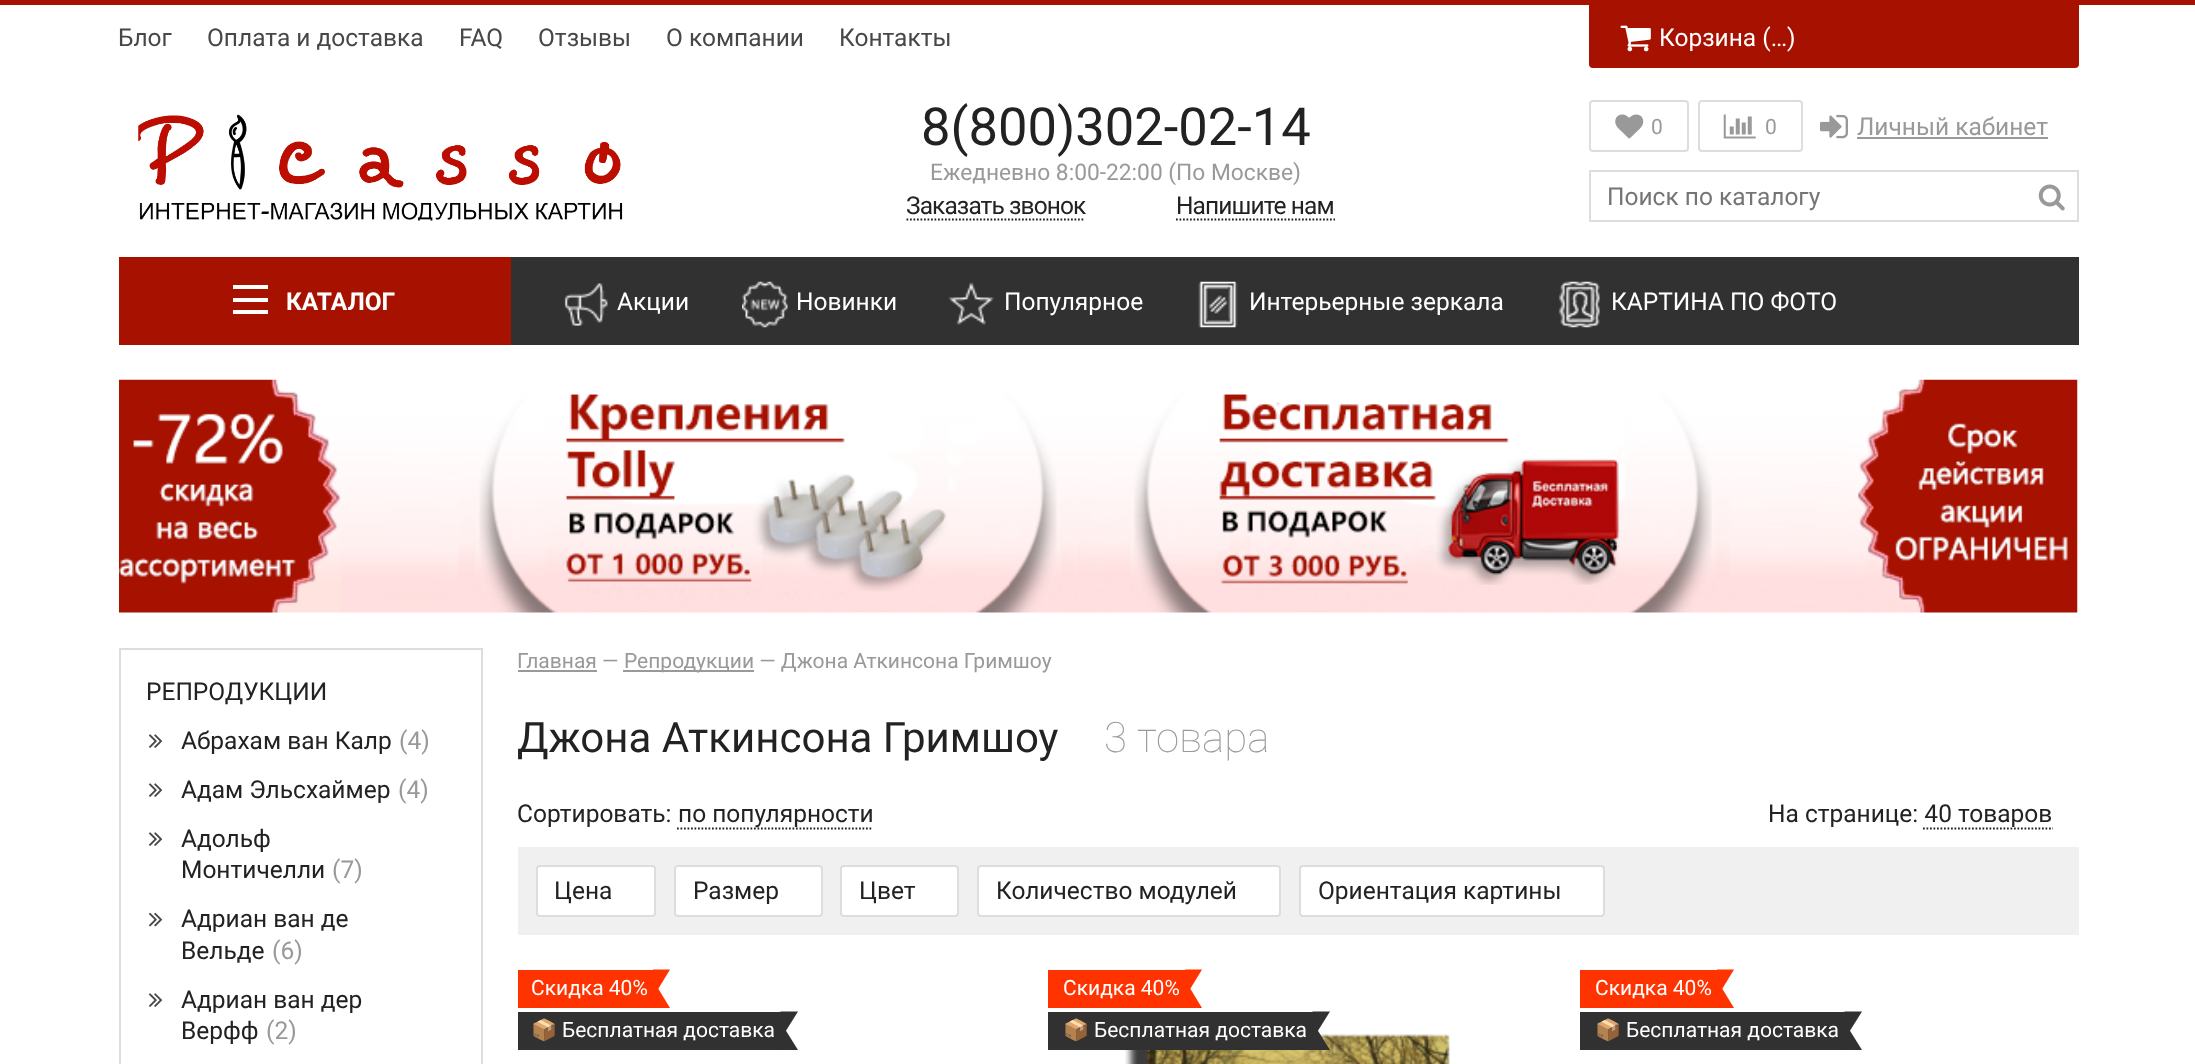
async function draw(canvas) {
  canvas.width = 2195
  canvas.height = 1064
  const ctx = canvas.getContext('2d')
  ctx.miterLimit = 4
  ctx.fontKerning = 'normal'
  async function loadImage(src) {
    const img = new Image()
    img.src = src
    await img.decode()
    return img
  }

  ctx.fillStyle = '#fff'
  ctx.fillRect(0, 0, 2195, 1064)
  ctx.fillStyle = '#a61100'
  ctx.fillRect(0, 0, 2195, 5)
  ctx.font = '24.5px Roboto'
  ctx.fillStyle = '#474747'
  ctx.fillText('Блог', 118, 46)
  ctx.fillText('Оплата и доставка', 207, 46)
  ctx.fillText('FAQ', 459, 46)
  ctx.fillText('Отзывы', 538, 46)
  ctx.fillText('О компании', 666, 46)
  ctx.fillText('Контакты', 839, 46)
  ctx.fillStyle = '#a61100'
  ctx.beginPath()
  ctx.roundRect(1589, 5, 490, 63, [0, 0, 4, 4])
  ctx.fill()
  ctx.drawImage(await loadImage('image0.png'), 1620, 25, 31, 27)
  ctx.fillStyle = '#fff'
  ctx.fillText('Корзина (…)', 1659, 46)
  ctx.drawImage(await loadImage('image1.png'), 138, 114, 485, 107)
  ctx.font = '52.5px Roboto'
  ctx.fillStyle = '#222'
  ctx.fillText('8(800)302-02-14', 921, 145)
  ctx.font = '22.75px Roboto'
  ctx.fillStyle = '#999'
  ctx.fillText('Ежедневно 8:00-22:00 (По Москве)', 930, 180)
  ctx.letterSpacing = '-0.9px'
  ctx.font = '24.5px Roboto'
  ctx.fillStyle = '#222'
  ctx.fillText('Заказать звонок', 906, 214)
  ctx.beginPath()
  ctx.moveTo(906.5, 219.5)
  ctx.lineTo(1085, 219.5)
  ctx.strokeStyle = '#222'
  ctx.lineWidth = 1.8
  ctx.setLineDash([1.75, 1.75])
  ctx.stroke()
  ctx.fillText('Напишите нам', 1176, 214)
  ctx.beginPath()
  ctx.moveTo(1176, 219.5)
  ctx.lineTo(1335, 219.5)
  ctx.stroke()
  ctx.beginPath()
  ctx.roundRect(1590, 101, 98, 50, 3)
  ctx.strokeStyle = '#ddd'
  ctx.lineWidth = 2
  ctx.setLineDash([])
  ctx.stroke()
  ctx.drawImage(await loadImage('image2.png'), 1615, 114, 29, 25)
  ctx.letterSpacing = '0px'
  ctx.font = '21px Roboto'
  ctx.fillStyle = '#999'
  ctx.fillText('0', 1651, 134)
  ctx.beginPath()
  ctx.roundRect(1699, 101, 103, 50, 3)
  ctx.stroke()
  ctx.drawImage(await loadImage('image3.png'), 1723, 114, 33, 25)
  ctx.fillText('0', 1765, 134)
  ctx.drawImage(await loadImage('image4.png'), 1820, 114, 28, 25)
  ctx.font = '24.5px Roboto'
  ctx.fillText('Личный кабинет', 1857, 135)
  ctx.fillRect(1857, 137, 191, 2)
  ctx.strokeRect(1590, 171, 488, 50)
  ctx.fillStyle = '#757575'
  ctx.fillText('Поиск по каталогу', 1607, 205)
  ctx.drawImage(await loadImage('image5.png'), 2038, 184, 27, 27)
  ctx.fillStyle = '#313131'
  ctx.fillRect(511, 257, 1568, 88)
  ctx.fillStyle = '#a61100'
  ctx.fillRect(119, 257, 392, 88)
  ctx.fillStyle = '#fff'
  ctx.fillRect(233, 285, 35, 4)
  ctx.fillRect(233, 298, 35, 4)
  ctx.fillRect(233, 310, 35, 4)
  ctx.font = 'bold 24.5px Roboto'
  ctx.fillText('КАТАЛОГ', 286, 310)
  ctx.drawImage(await loadImage('image6.png'), 564, 283, 44, 43)
  ctx.font = '24.5px Roboto'
  ctx.fillText('Акции', 617, 310)
  ctx.drawImage(await loadImage('image7.png'), 742, 281, 46, 47)
  ctx.fillText('Новинки', 796, 310)
  ctx.drawImage(await loadImage('image8.png'), 948, 282, 46, 44)
  ctx.fillText('Популярное', 1004, 310)
  ctx.drawImage(await loadImage('image9.png'), 1198, 281, 40, 47)
  ctx.fillText('Интерьерные зеркала', 1249, 310)
  ctx.drawImage(await loadImage('image10.png'), 1558, 281, 42, 47)
  ctx.fillText('КАРТИНА ПО ФОТО', 1611, 310)
  ctx.drawImage(await loadImage('image11.png'), 119, 379, 1959, 234)
  ctx.fillStyle = '#ddd'
  ctx.fillRect(119, 648, 364, 2)
  ctx.fillRect(481, 648, 2, 416)
  ctx.fillRect(119, 648, 2, 416)
  ctx.fillStyle = '#222'
  ctx.fillText('РЕПРОДУКЦИИ', 146, 700)
  ctx.drawImage(await loadImage('image12.png'), 149, 734, 14, 14)
  ctx.fillText('Абрахам ван Калр', 181, 749)
  ctx.fillStyle = '#999'
  ctx.fillText('(4)', 399, 749)
  ctx.drawImage(await loadImage('image12.png'), 149, 783, 14, 14)
  ctx.fillStyle = '#222'
  ctx.fillText('Адам Эльсхаймер', 181, 798)
  ctx.fillStyle = '#999'
  ctx.fillText('(4)', 398, 798)
  ctx.drawImage(await loadImage('image12.png'), 149, 832, 14, 14)
  ctx.fillStyle = '#222'
  ctx.fillText('Адольф', 181, 847)
  ctx.fillText('Монтичелли', 181, 878)
  ctx.fillStyle = '#999'
  ctx.fillText('(7)', 332, 878)
  ctx.drawImage(await loadImage('image13.png'), 149, 912, 14, 15)
  ctx.fillStyle = '#222'
  ctx.fillText('Адриан ван де', 181, 927)
  ctx.fillText('Вельде', 181, 959)
  ctx.fillStyle = '#999'
  ctx.fillText('(6)', 272, 959)
  ctx.drawImage(await loadImage('image12.png'), 149, 993, 14, 14)
  ctx.fillStyle = '#222'
  ctx.fillText('Адриан ван дер', 181, 1008)
  ctx.fillText('Верфф', 181, 1039)
  ctx.fillStyle = '#999'
  ctx.fillText('(2)', 266, 1039)
  ctx.font = '21px Roboto'
  ctx.fillText('Главная —', 517, 668)
  ctx.fillRect(518, 670, 79, 2)
  ctx.fillRect(623, 670, 131, 2)
  ctx.fillText('Репродукции — Джона Аткинсона Гримшоу', 624, 668)
  ctx.font = '42px Roboto'
  ctx.fillStyle = '#222'
  ctx.fillText('Джона Аткинсона Гримшоу', 517, 752)
  ctx.font = '100 42px Roboto'
  ctx.fillStyle = '#999'
  ctx.fillText('3 товара', 1104, 752)
  ctx.font = '24.5px Roboto'
  ctx.fillStyle = '#222'
  ctx.fillText('Сортировать:', 517, 822)
  ctx.beginPath()
  ctx.moveTo(677, 828.5)
  ctx.lineTo(873, 828.5)
  ctx.strokeStyle = '#222'
  ctx.lineWidth = 1.8
  ctx.setLineDash([1.75, 1.75])
  ctx.stroke()
  ctx.fillText('по популярности', 678, 822)
  ctx.fillText('На странице: 40 товаров', 1768, 822)
  ctx.beginPath()
  ctx.moveTo(1923, 828.5)
  ctx.lineTo(2053, 828.5)
  ctx.stroke()
  ctx.fillStyle = '#f0f0f0'
  ctx.fillRect(518, 847, 1561, 88)
  ctx.fillStyle = '#fff'
  ctx.beginPath()
  ctx.roundRect(537, 866, 118, 50, 3)
  ctx.fill()
  ctx.strokeStyle = '#ddd'
  ctx.lineWidth = 2
  ctx.setLineDash([])
  ctx.stroke()
  ctx.fillStyle = '#222'
  ctx.fillText('Цена', 554, 899)
  ctx.fillStyle = '#fff'
  ctx.beginPath()
  ctx.roundRect(675, 866, 147, 50, 3)
  ctx.fill()
  ctx.stroke()
  ctx.fillStyle = '#222'
  ctx.fillText('Размер', 693, 899)
  ctx.fillStyle = '#fff'
  ctx.beginPath()
  ctx.roundRect(841, 866, 117, 50, 3)
  ctx.fill()
  ctx.stroke()
  ctx.fillStyle = '#222'
  ctx.fillText('Цвет', 859, 899)
  ctx.fillStyle = '#fff'
  ctx.beginPath()
  ctx.roundRect(978, 866, 302, 50, 3)
  ctx.fill()
  ctx.stroke()
  ctx.fillStyle = '#222'
  ctx.fillText('Количество модулей', 996, 899)
  ctx.fillStyle = '#fff'
  ctx.beginPath()
  ctx.roundRect(1300, 866, 304, 50, 3)
  ctx.fill()
  ctx.stroke()
  ctx.fillStyle = '#222'
  ctx.fillText('Ориентация картины', 1318, 899)
  ctx.fillStyle = '#f30'
  ctx.fillRect(518, 970, 135, 38)
  ctx.font = '21px Roboto'
  ctx.fillStyle = '#fff'
  ctx.fillText('Скидка 40%', 531, 995)
  ctx.fillStyle = '#f30'
  ctx.beginPath()
  ctx.moveTo(653, 969.5)
  ctx.lineTo(670, 969.5)
  ctx.lineTo(653, 997.5)
  ctx.closePath()
  ctx.fill()
  ctx.beginPath()
  ctx.moveTo(653, 1008)
  ctx.lineTo(653, 980)
  ctx.lineTo(670, 1008)
  ctx.closePath()
  ctx.fill()
  ctx.fillStyle = '#313131'
  ctx.fillRect(518, 1012, 263, 38)
  ctx.font = '21px Noto Color Emoji'
  ctx.fillStyle = '#fff'
  ctx.fillText('📦', 531, 1037)
  ctx.font = '21px Roboto'
  ctx.fillText('Бесплатная доставка', 562, 1037)
  ctx.fillStyle = '#313131'
  ctx.beginPath()
  ctx.moveTo(780.5, 1011.5)
  ctx.lineTo(798, 1011.5)
  ctx.lineTo(780.5, 1039.5)
  ctx.closePath()
  ctx.fill()
  ctx.beginPath()
  ctx.moveTo(780.5, 1050)
  ctx.lineTo(780.5, 1022)
  ctx.lineTo(798, 1050)
  ctx.closePath()
  ctx.fill()
  ctx.fillStyle = '#f30'
  ctx.fillRect(1048, 970, 137, 38)
  ctx.fillStyle = '#fff'
  ctx.fillText('Скидка 40%', 1063, 995)
  ctx.fillStyle = '#f30'
  ctx.beginPath()
  ctx.moveTo(1185, 969.5)
  ctx.lineTo(1202, 969.5)
  ctx.lineTo(1185, 997.5)
  ctx.closePath()
  ctx.fill()
  ctx.beginPath()
  ctx.moveTo(1185, 1008)
  ctx.lineTo(1185, 980)
  ctx.lineTo(1202, 1008)
  ctx.closePath()
  ctx.fill()
  ctx.drawImage(await loadImage('image14.png'), 1125, 1034, 325, 30)
  ctx.fillStyle = '#313131'
  ctx.fillRect(1048, 1012, 265, 38)
  ctx.font = '21px Noto Color Emoji'
  ctx.fillStyle = '#fff'
  ctx.fillText('📦', 1063, 1037)
  ctx.font = '21px Roboto'
  ctx.fillText('Бесплатная доставка', 1094, 1037)
  ctx.fillStyle = '#313131'
  ctx.beginPath()
  ctx.moveTo(1312.5, 1011.5)
  ctx.lineTo(1330, 1011.5)
  ctx.lineTo(1312.5, 1039.5)
  ctx.closePath()
  ctx.fill()
  ctx.beginPath()
  ctx.moveTo(1312.5, 1050)
  ctx.lineTo(1312.5, 1022)
  ctx.lineTo(1330, 1050)
  ctx.closePath()
  ctx.fill()
  ctx.fillStyle = '#f30'
  ctx.fillRect(1580, 970, 137, 38)
  ctx.fillStyle = '#fff'
  ctx.fillText('Скидка 40%', 1595, 995)
  ctx.fillStyle = '#f30'
  ctx.beginPath()
  ctx.moveTo(1717, 969.5)
  ctx.lineTo(1734, 969.5)
  ctx.lineTo(1717, 997.5)
  ctx.closePath()
  ctx.fill()
  ctx.beginPath()
  ctx.moveTo(1717, 1008)
  ctx.lineTo(1717, 980)
  ctx.lineTo(1734, 1008)
  ctx.closePath()
  ctx.fill()
  ctx.fillStyle = '#313131'
  ctx.fillRect(1580, 1012, 265, 38)
  ctx.font = '21px Noto Color Emoji'
  ctx.fillStyle = '#fff'
  ctx.fillText('📦', 1595, 1037)
  ctx.font = '21px Roboto'
  ctx.fillText('Бесплатная доставка', 1626, 1037)
  ctx.fillStyle = '#313131'
  ctx.beginPath()
  ctx.moveTo(1844.5, 1011.5)
  ctx.lineTo(1862, 1011.5)
  ctx.lineTo(1844.5, 1039.5)
  ctx.closePath()
  ctx.fill()
  ctx.beginPath()
  ctx.moveTo(1844.5, 1050)
  ctx.lineTo(1844.5, 1022)
  ctx.lineTo(1862, 1050)
  ctx.closePath()
  ctx.fill()
}

draw(document.querySelector('canvas'))
